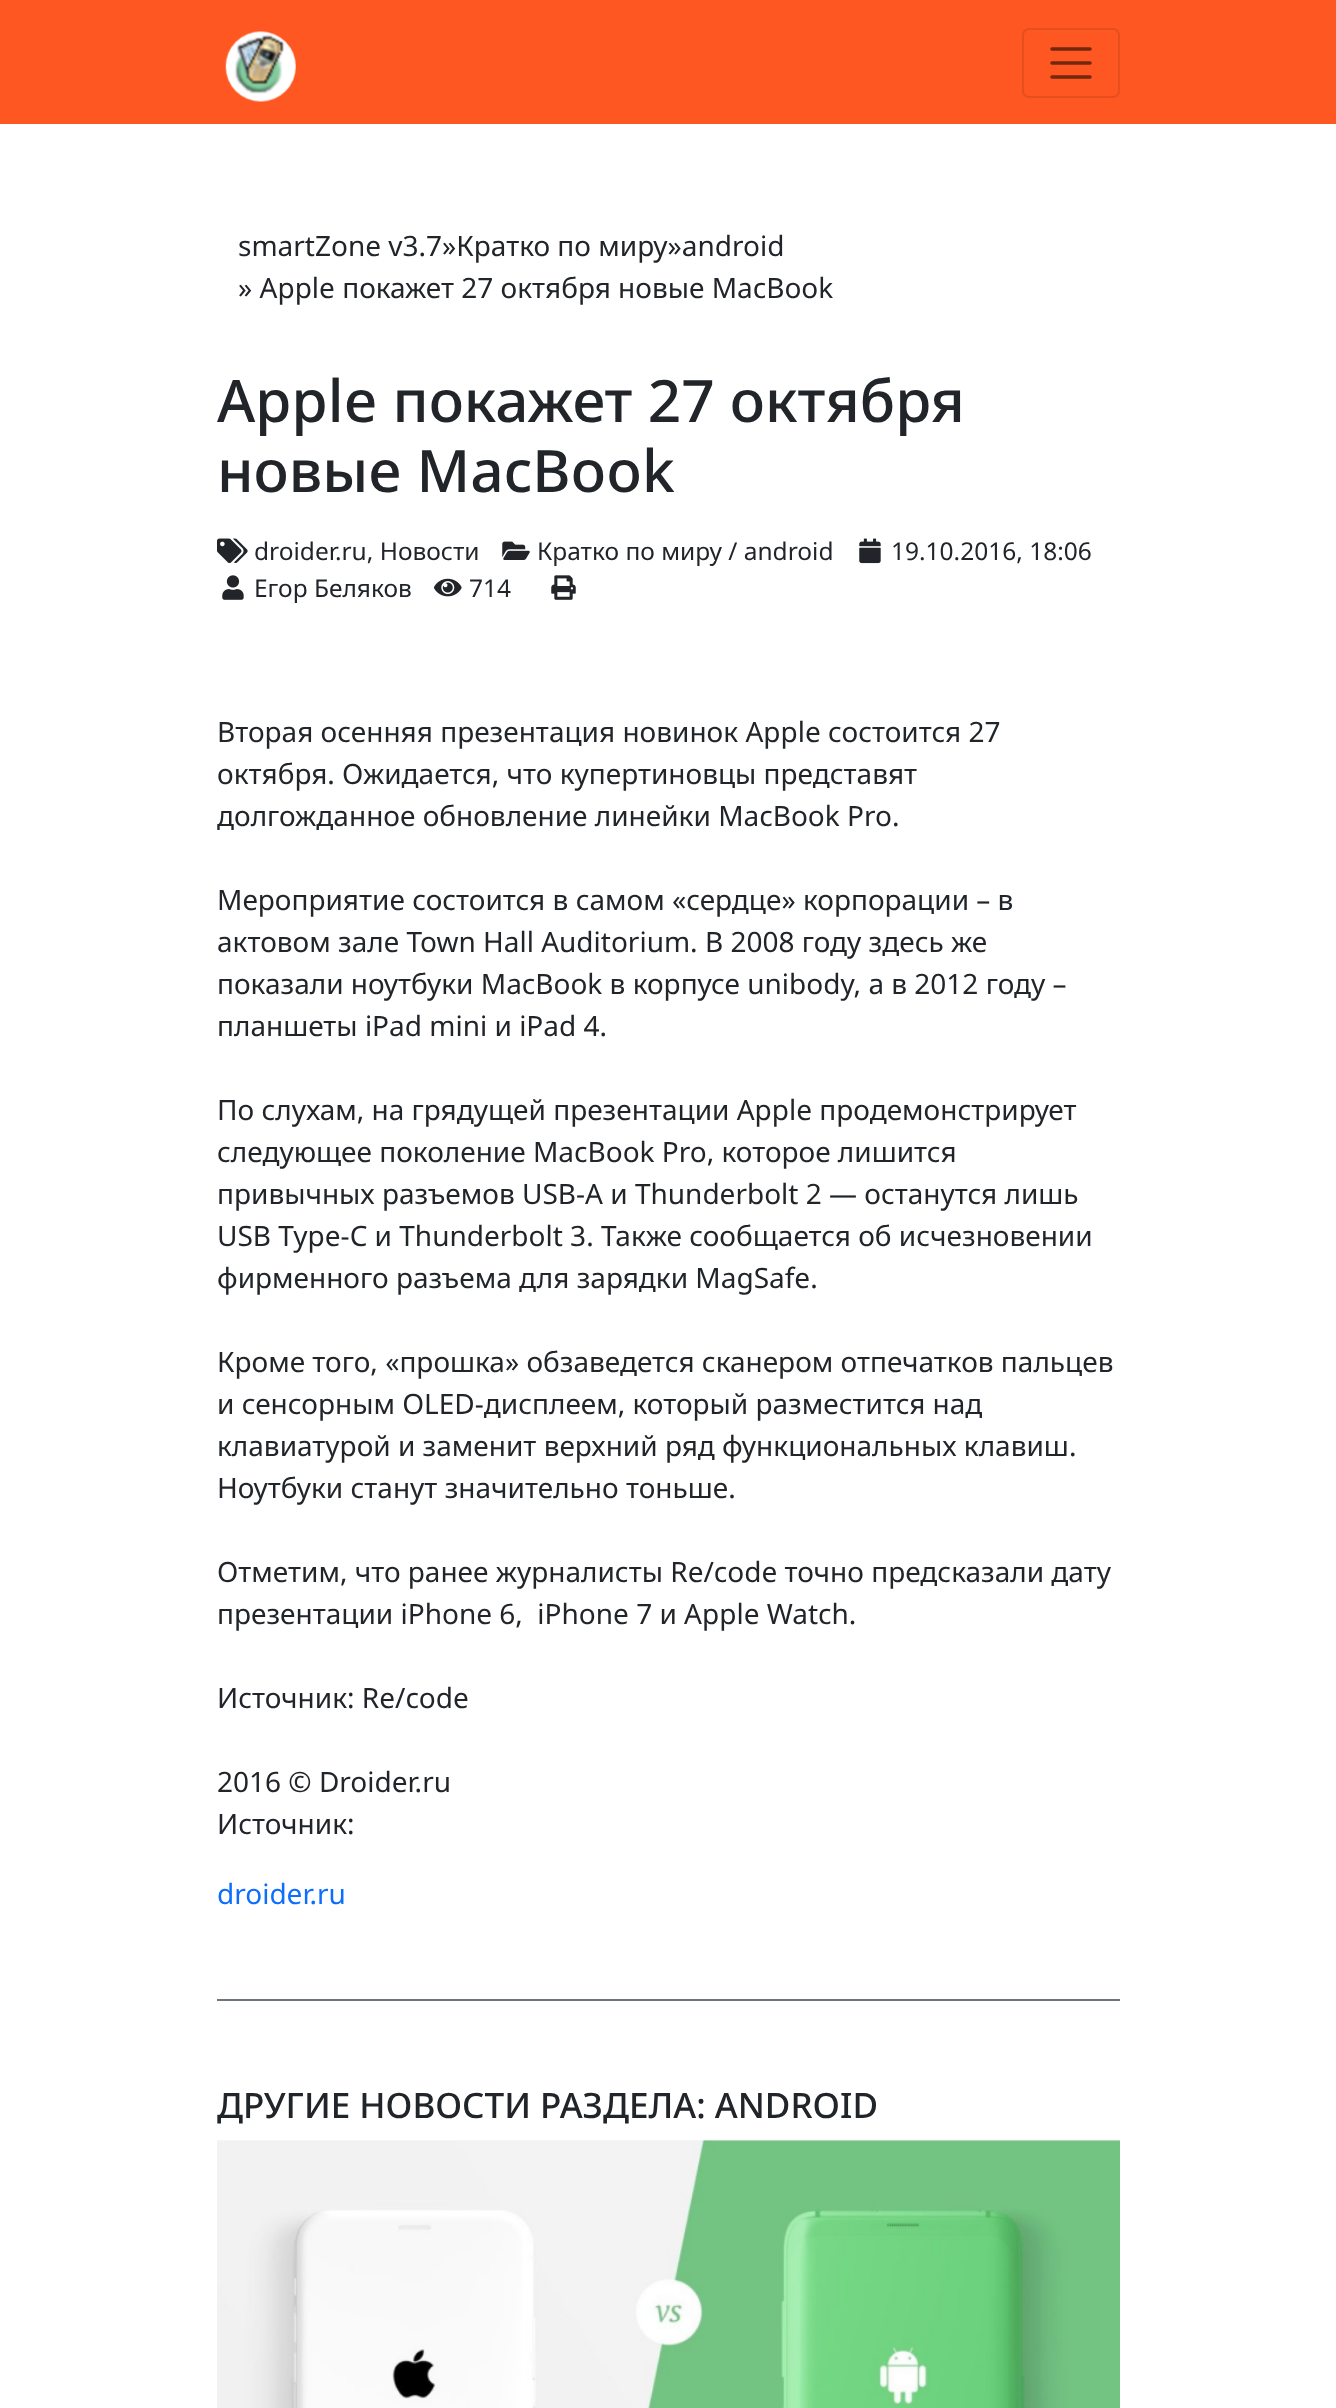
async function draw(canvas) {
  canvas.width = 1336
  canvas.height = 2408
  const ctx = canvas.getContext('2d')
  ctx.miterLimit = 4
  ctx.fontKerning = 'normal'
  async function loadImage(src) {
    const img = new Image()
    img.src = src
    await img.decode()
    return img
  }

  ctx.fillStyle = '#fff'
  ctx.fillRect(0, 0, 1336, 2408)
  ctx.fillStyle = '#ff5722'
  ctx.fillRect(0, 0, 1336, 124)
  ctx.drawImage(await loadImage('image0.png'), 225, 31, 71, 71)
  ctx.beginPath()
  ctx.roundRect(1023, 29, 96, 68, 6)
  ctx.strokeStyle = '#e64e1f'
  ctx.lineWidth = 2
  ctx.stroke()
  ctx.beginPath()
  ctx.moveTo(1052, 49)
  ctx.lineTo(1090, 49)
  ctx.moveTo(1052, 63)
  ctx.lineTo(1090, 63)
  ctx.moveTo(1052, 77)
  ctx.lineTo(1090, 77)
  ctx.strokeStyle = '#73270f'
  ctx.lineWidth = 3.5
  ctx.lineCap = 'round'
  ctx.stroke()
  ctx.font = '28px Noto Sans'
  ctx.fillStyle = '#212529'
  ctx.fillText('smartZone v3.7»Кратко по миру»android', 238, 256)
  ctx.fillText('» Apple покажет 27 октября новые MacBook', 238, 298)
  ctx.font = '500 58.5px Noto Sans'
  ctx.fillText('Apple покажет 27 октября', 217, 422)
  ctx.fillText('новые MacBook', 217, 492)
  ctx.drawImage(await loadImage('image1.png'), 217, 538, 31, 25)
  ctx.font = '24.5px Noto Sans'
  ctx.fillText('droider.ru, Новости', 254, 560)
  ctx.drawImage(await loadImage('image2.png'), 502, 541, 28, 19)
  ctx.fillText('Кратко по миру / android', 537, 560)
  ctx.drawImage(await loadImage('image3.png'), 859, 538, 22, 26)
  ctx.fillText('19.10.2016, 18:06', 891, 560)
  ctx.drawImage(await loadImage('image4.png'), 222, 575, 22, 25)
  ctx.fillText('Егор Беляков', 254, 597)
  ctx.drawImage(await loadImage('image5.png'), 434, 578, 28, 19)
  ctx.fillText('714', 469, 597)
  ctx.drawImage(await loadImage('image6.png'), 551, 575, 25, 25)
  ctx.font = '28px Noto Sans'
  ctx.fillText('Вторая осенняя презентация новинок Apple состоится 27', 217, 742)
  ctx.fillText('октября. Ожидается, что купертиновцы представят', 217, 784)
  ctx.fillText('долгожданное обновление линейки MacBook Pro.', 217, 826)
  ctx.fillText('Мероприятие состоится в самом «сердце» корпорации – в', 217, 910)
  ctx.fillText('актовом зале Town Hall Auditorium. В 2008 году здесь же', 217, 952)
  ctx.fillText('показали ноутбуки MacBook в корпусе unibody, а в 2012 году –', 217, 994)
  ctx.fillText('планшеты iPad mini и iPad 4.', 217, 1036)
  ctx.fillText('По слухам, на грядущей презентации Apple продемонстрирует', 217, 1120)
  ctx.fillText('следующее поколение MacBook Pro, которое лишится', 217, 1162)
  ctx.fillText('привычных разъемов USB-A и Thunderbolt 2 — останутся лишь', 217, 1204)
  ctx.fillText('USB Type-C и Thunderbolt 3. Также сообщается об исчезновении', 217, 1246)
  ctx.fillText('фирменного разъема для зарядки MagSafe.', 217, 1288)
  ctx.fillText('Кроме того, «прошка» обзаведется сканером отпечатков пальцев', 217, 1372)
  ctx.fillText('и сенсорным OLED-дисплеем, который разместится над', 217, 1414)
  ctx.fillText('клавиатурой и заменит верхний ряд функциональных клавиш.', 217, 1456)
  ctx.fillText('Ноутбуки станут значительно тоньше.', 217, 1498)
  ctx.fillText('Отметим, что ранее журналисты Re/code точно предсказали дату', 217, 1582)
  ctx.fillText('презентации iPhone 6,  iPhone 7 и Apple Watch.', 217, 1624)
  ctx.fillText('Источник: Re/code', 217, 1708)
  ctx.fillText('2016 © Droider.ru', 217, 1792)
  ctx.fillText('Источник:', 217, 1834)
  ctx.fillStyle = '#0d6efd'
  ctx.fillText('droider.ru', 217, 1904)
  ctx.fillStyle = '#6c757d'
  ctx.fillRect(217, 1999, 903, 2)
  ctx.font = '500 35px Noto Sans'
  ctx.fillStyle = '#212529'
  ctx.fillText('ДРУГИЕ НОВОСТИ РАЗДЕЛА: ANDROID', 217, 2118)
  ctx.fillStyle = '#f8f9fa'
  ctx.fillRect(217, 2140, 903, 1)
  ctx.drawImage(await loadImage('image7.png'), 217, 2140, 903, 268)
}

draw(document.querySelector('canvas'))
